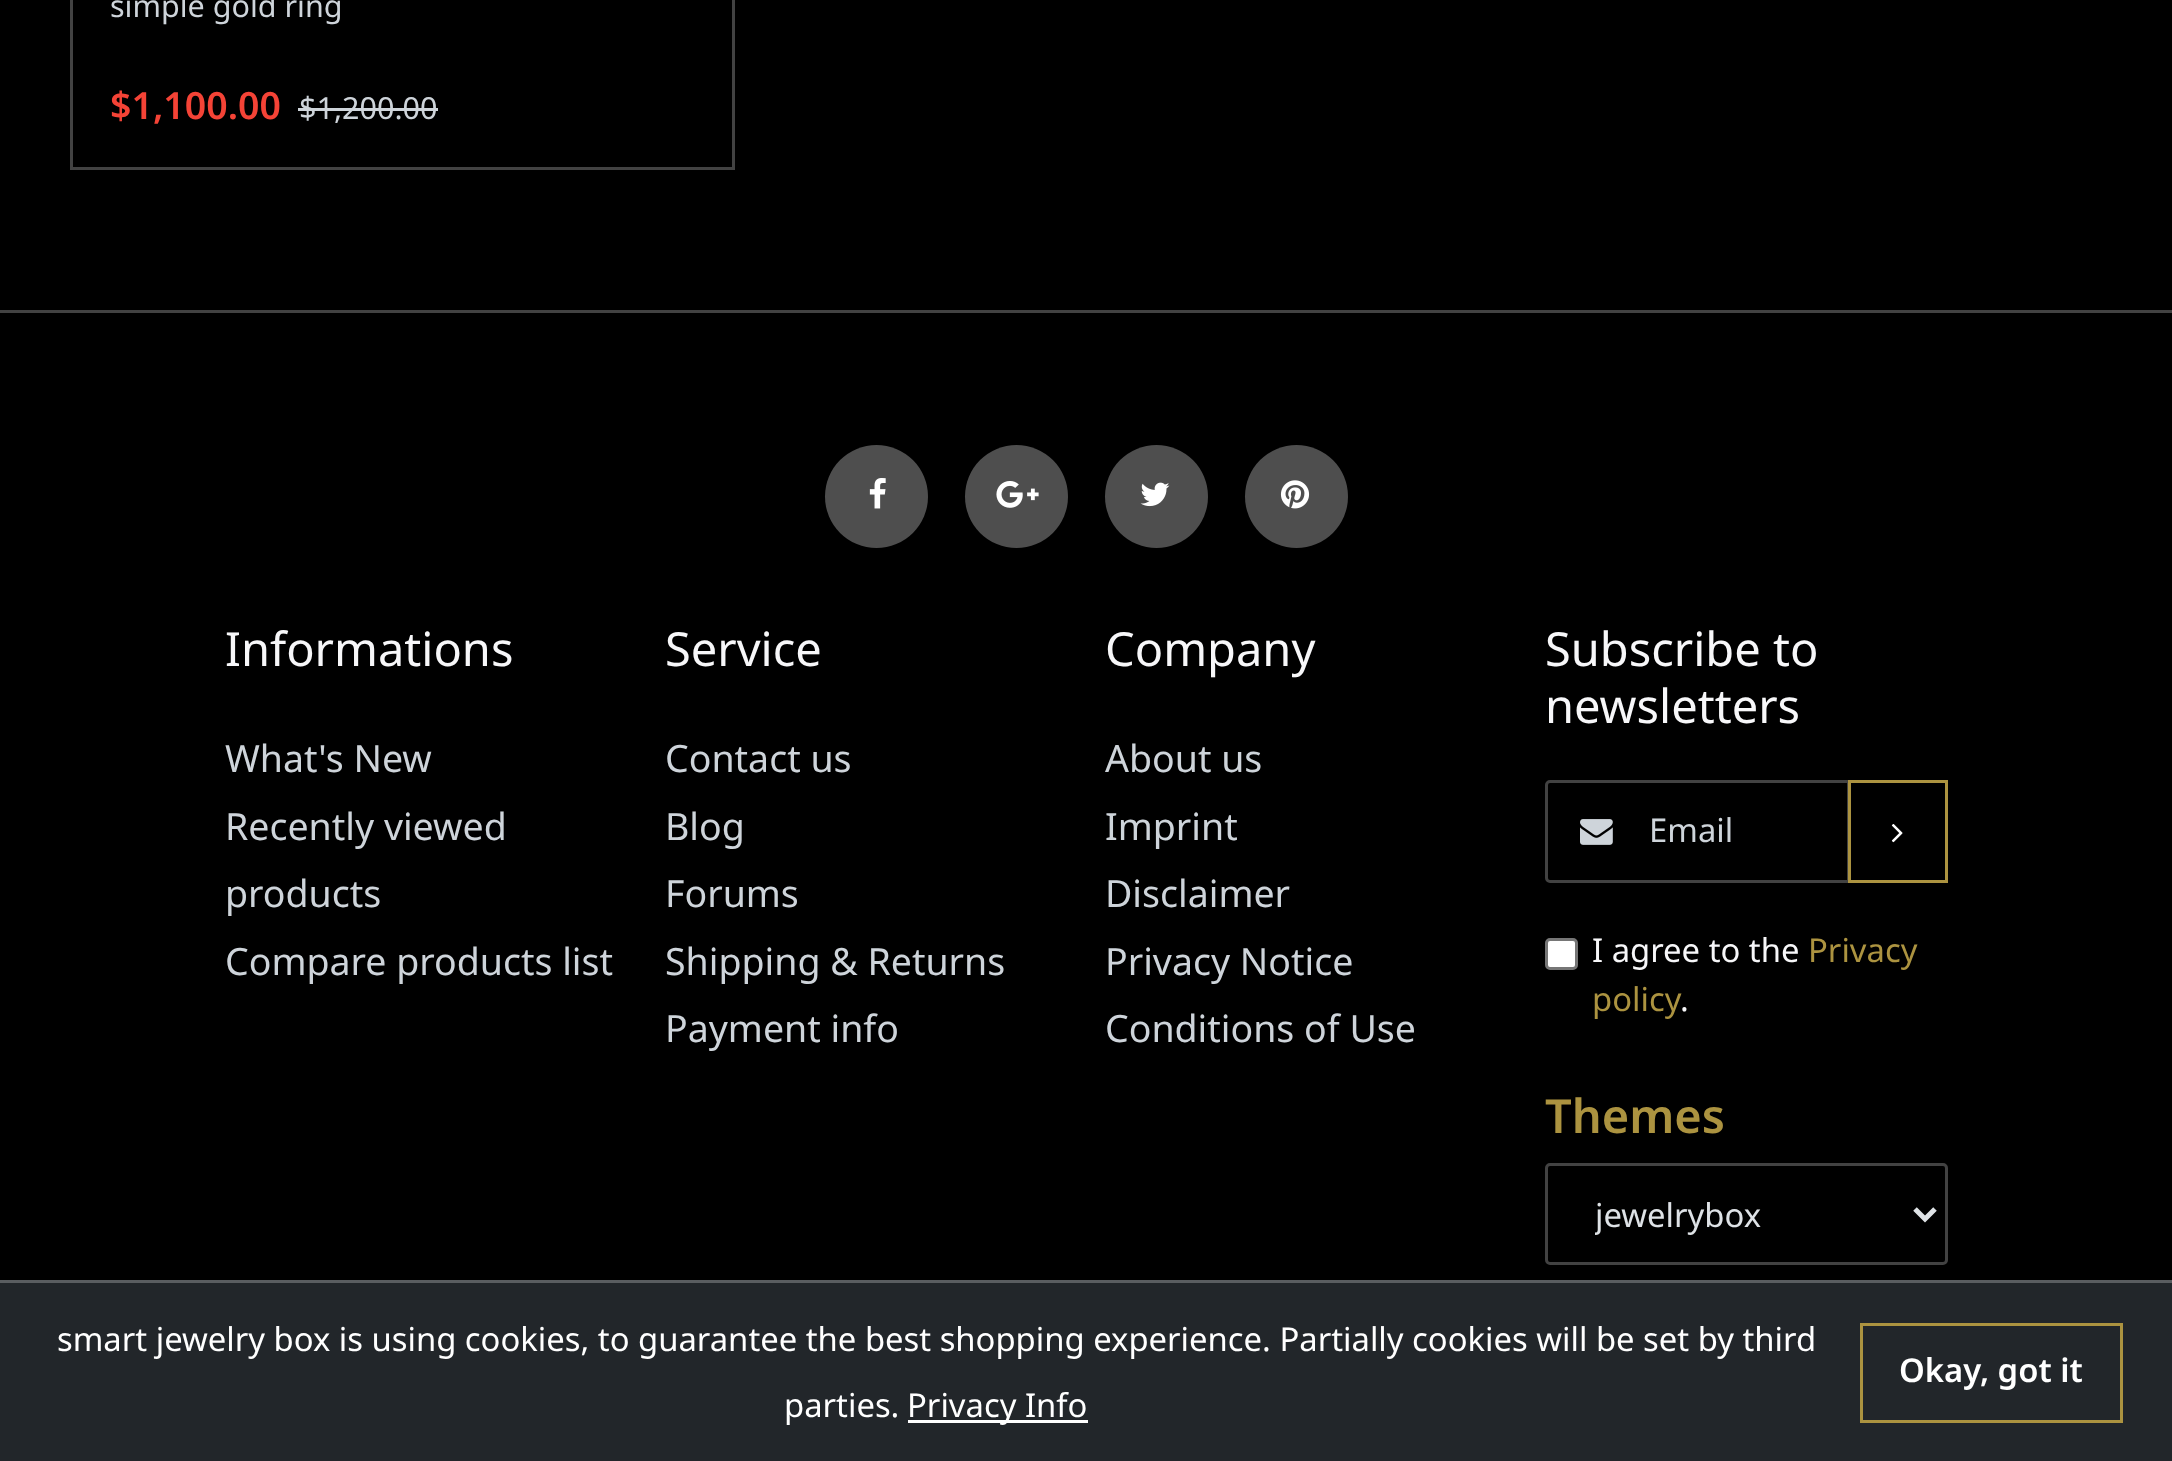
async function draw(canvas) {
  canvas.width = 2172
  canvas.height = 1461
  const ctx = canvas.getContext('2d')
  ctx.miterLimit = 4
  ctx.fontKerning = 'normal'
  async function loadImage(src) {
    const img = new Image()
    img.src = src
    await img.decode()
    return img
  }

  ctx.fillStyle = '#000'
  ctx.fillRect(0, 0, 2172, 1461)
  ctx.fillStyle = '#424242'
  ctx.fillRect(0, 310, 2172, 3)
  ctx.strokeStyle = '#424242'
  ctx.lineWidth = 3
  ctx.strokeRect(71.5, -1.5, 662, 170)
  ctx.font = '30.5px Noto Sans'
  ctx.fillStyle = '#ced4da'
  ctx.fillText('simple gold ring', 110, 17)
  ctx.font = '600 37.5px Noto Sans'
  ctx.fillStyle = '#f44336'
  ctx.fillText('$1,100.00', 110, 119)
  ctx.font = '30.5px Noto Sans'
  ctx.fillStyle = '#ced4da'
  ctx.fillText('$1,200.00', 299, 119)
  ctx.fillRect(298, 108, 140, 3)
  ctx.fillStyle = '#4e4e4e'
  ctx.beginPath()
  ctx.arc(876.5, 496.5, 51.5, 0, 2 * Math.PI)
  ctx.fill()
  ctx.drawImage(await loadImage('image0.png'), 869, 478, 17, 31)
  ctx.beginPath()
  ctx.arc(1016.5, 496.5, 51.5, 0, 2 * Math.PI)
  ctx.fill()
  ctx.drawImage(await loadImage('image1.png'), 996, 481, 43, 27)
  ctx.beginPath()
  ctx.arc(1156.5, 496.5, 51.5, 0, 2 * Math.PI)
  ctx.fill()
  ctx.drawImage(await loadImage('image2.png'), 1140, 482, 30, 25)
  ctx.beginPath()
  ctx.arc(1296.5, 496.5, 51.5, 0, 2 * Math.PI)
  ctx.fill()
  ctx.drawImage(await loadImage('image3.png'), 1280, 480, 30, 29)
  ctx.font = '47px Noto Sans'
  ctx.fillStyle = '#f7f7f9'
  ctx.fillText('Informations', 225, 666)
  ctx.font = '37.5px Noto Sans'
  ctx.fillStyle = '#ced4da'
  ctx.fillText('What\'s New', 225, 772)
  ctx.fillText('Recently viewed', 225, 840)
  ctx.fillText('products', 225, 907)
  ctx.fillText('Compare products list', 225, 975)
  ctx.font = '47px Noto Sans'
  ctx.fillStyle = '#f7f7f9'
  ctx.fillText('Service', 665, 666)
  ctx.font = '37.5px Noto Sans'
  ctx.fillStyle = '#ced4da'
  ctx.fillText('Contact us', 665, 772)
  ctx.fillText('Blog', 665, 840)
  ctx.fillText('Forums', 665, 907)
  ctx.fillText('Shipping & Returns', 665, 975)
  ctx.fillText('Payment info', 665, 1042)
  ctx.font = '47px Noto Sans'
  ctx.fillStyle = '#f7f7f9'
  ctx.fillText('Company', 1105, 666)
  ctx.font = '37.5px Noto Sans'
  ctx.fillStyle = '#ced4da'
  ctx.fillText('About us', 1105, 772)
  ctx.fillText('Imprint', 1105, 840)
  ctx.fillText('Disclaimer', 1105, 907)
  ctx.fillText('Privacy Notice', 1105, 975)
  ctx.fillText('Conditions of Use', 1105, 1042)
  ctx.font = '47px Noto Sans'
  ctx.fillStyle = '#f7f7f9'
  ctx.fillText('Subscribe to', 1545, 666)
  ctx.fillText('newsletters', 1545, 723)
  ctx.beginPath()
  ctx.roundRect(1546.5, 781.5, 302, 100, [3.5, 0, 0, 3.5])
  ctx.stroke()
  ctx.drawImage(await loadImage('image4.png'), 1580, 819, 33, 26)
  ctx.font = '32.8px Noto Sans'
  ctx.fillStyle = '#ced4da'
  ctx.fillText('Email', 1649, 842)
  ctx.strokeStyle = '#ac9340'
  ctx.strokeRect(1849.5, 781.5, 97, 100)
  ctx.drawImage(await loadImage('image5.png'), 1891, 824, 12, 19)
  ctx.fillStyle = '#fff'
  ctx.beginPath()
  ctx.roundRect(1546.5, 939.5, 30, 29, 3.5)
  ctx.fill()
  ctx.strokeStyle = '#767676'
  ctx.stroke()
  ctx.fillStyle = '#f7f7f9'
  ctx.fillText('I agree to the', 1592, 962)
  ctx.fillStyle = '#ac9340'
  ctx.fillText('Privacy', 1808, 962)
  ctx.fillText('policy', 1592, 1011)
  ctx.fillStyle = '#f7f7f9'
  ctx.fillText('.', 1680, 1011)
  ctx.font = '600 47px Noto Sans'
  ctx.fillStyle = '#ac9340'
  ctx.fillText('Themes', 1545, 1133)
  ctx.beginPath()
  ctx.roundRect(1546.5, 1164.5, 400, 99, 3.5)
  ctx.strokeStyle = '#424242'
  ctx.stroke()
  ctx.beginPath()
  ctx.moveTo(1915, 1209)
  ctx.lineTo(1925, 1219)
  ctx.lineTo(1935, 1209)
  ctx.strokeStyle = '#dee2e6'
  ctx.lineWidth = 5
  ctx.stroke()
  ctx.save()
  ctx.beginPath()
  ctx.rect(1595, 1190, 273, 50)
  ctx.clip()
  ctx.font = '32.8px Noto Sans'
  ctx.fillStyle = '#dee2e6'
  ctx.fillText('jewelrybox', 1595, 1227)
  ctx.restore()
  ctx.fillStyle = '#22262a'
  ctx.fillRect(0, 1283, 2172, 178)
  ctx.fillStyle = '#5a5d60'
  ctx.fillRect(0, 1280, 2172, 3)
  ctx.font = '32.8px Noto Sans'
  ctx.fillStyle = '#fff'
  ctx.fillText('smart jewelry box is using cookies, to guarantee the best shopping experience. Partially cookies will be set by third', 57, 1351)
  ctx.fillText('parties.', 784, 1417)
  ctx.fillRect(908, 1420, 180, 3)
  ctx.fillText('Privacy Info', 907, 1417)
  ctx.strokeStyle = '#ac9340'
  ctx.lineWidth = 3
  ctx.strokeRect(1861.5, 1324.5, 260, 97)
  ctx.font = '600 32.8px Noto Sans'
  ctx.fillText('Okay, got it', 1899, 1382)
}

draw(document.querySelector('canvas'))
